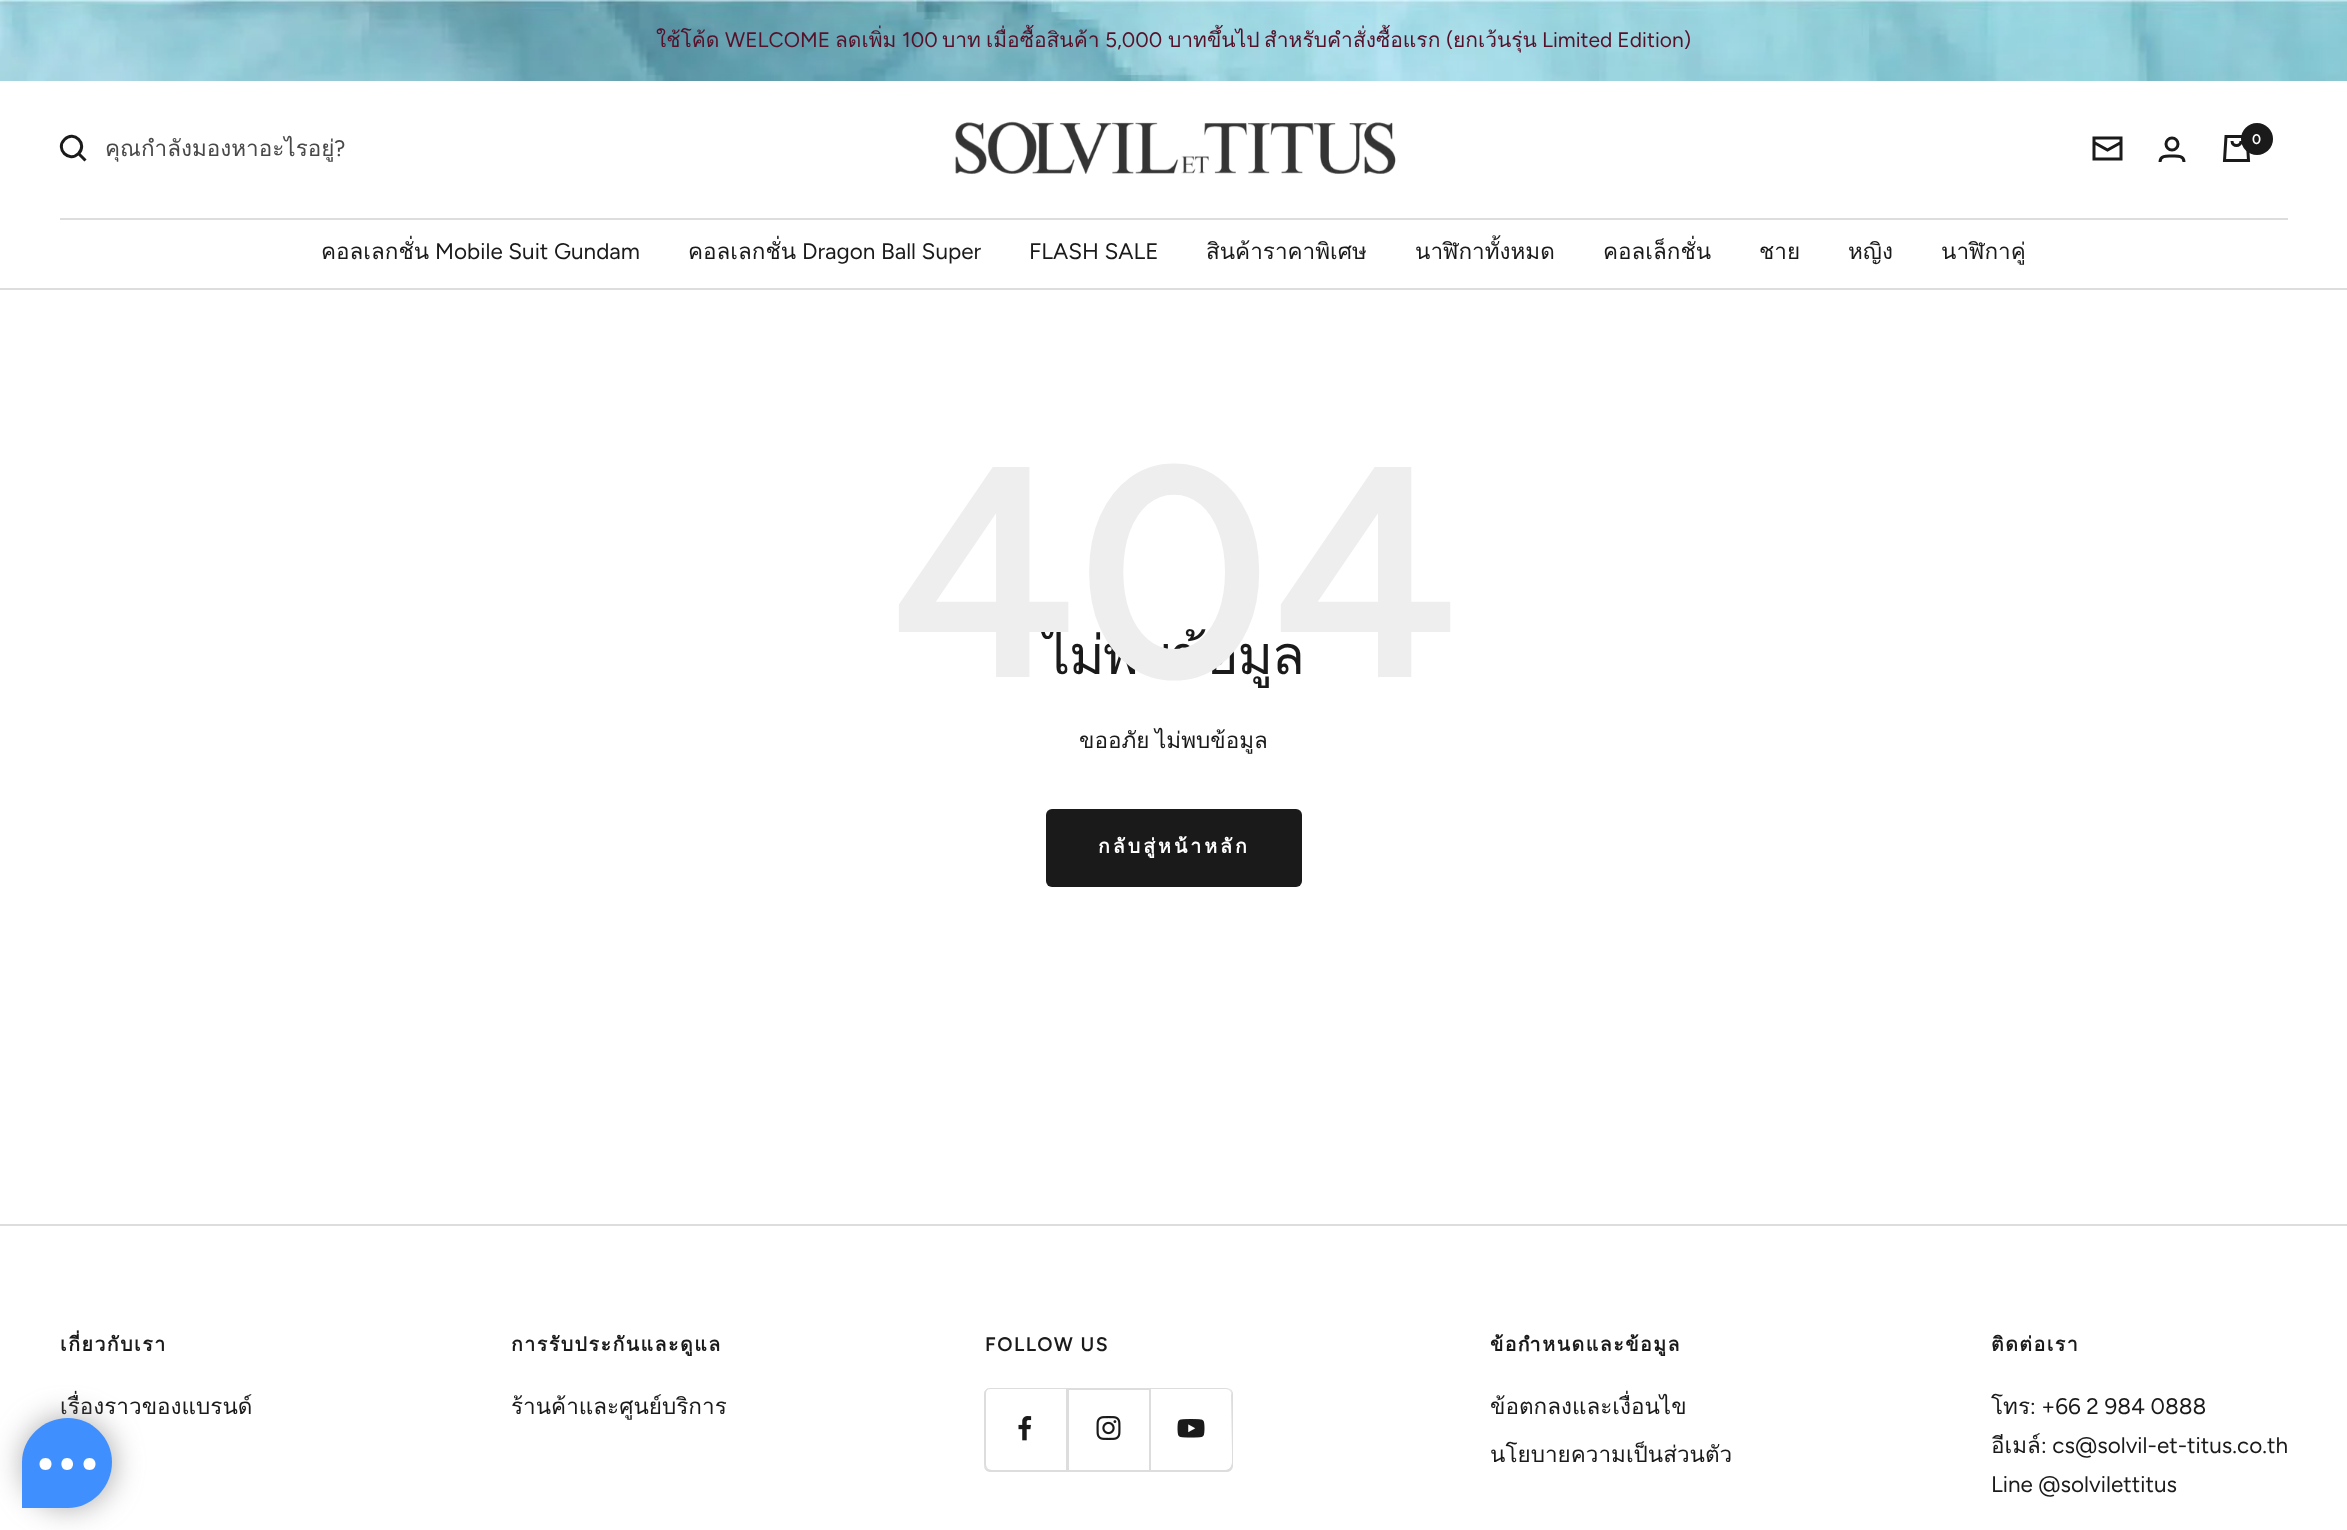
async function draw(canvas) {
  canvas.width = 2347
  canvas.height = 1530
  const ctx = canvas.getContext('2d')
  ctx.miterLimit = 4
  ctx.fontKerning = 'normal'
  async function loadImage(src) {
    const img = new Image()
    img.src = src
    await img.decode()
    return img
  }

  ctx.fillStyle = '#fff'
  ctx.fillRect(0, 0, 2347, 1530)
  ctx.drawImage(await loadImage('image0.png'), 0, 0, 2347, 81)
  ctx.font = '21px Loma'
  ctx.fillStyle = '#56112a'
  ctx.fillText('ใช้โค้ด', 656, 47)
  ctx.font = '21px Figtree'
  ctx.fillText('WELCOME', 725, 47)
  ctx.font = '21px Loma'
  ctx.fillText('ลดเพิ่ม', 835, 47)
  ctx.font = '21px Figtree'
  ctx.fillText('100', 902, 47)
  ctx.font = '21px Loma'
  ctx.fillText('บาท', 942, 47)
  ctx.fillText('เมื่อซื้อสินค้า', 986, 47)
  ctx.font = '21px Figtree'
  ctx.fillText('5,000', 1105, 47)
  ctx.font = '21px Loma'
  ctx.fillText('บาทขึ้นไป', 1168, 47)
  ctx.fillText('สำหรับคำสั่งซื้อแรก', 1264, 47)
  ctx.font = '21px Figtree'
  ctx.fillText('(', 1446, 47)
  ctx.font = '21px Loma'
  ctx.fillText('ยกเว้นรุ่น', 1453, 47)
  ctx.font = '21px Figtree'
  ctx.fillText('Limited Edition)', 1542, 47)
  ctx.fillStyle = '#ddd'
  ctx.beginPath()
  ctx.moveTo(0, 288)
  ctx.lineTo(0, 290)
  ctx.lineTo(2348, 290)
  ctx.lineTo(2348, 83)
  ctx.lineTo(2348, 288)
  ctx.closePath()
  ctx.fill()
  ctx.beginPath()
  ctx.moveTo(78.5, 153.5)
  ctx.bezierCurveTo(88, 144, 74, 130, 64.5, 139.5)
  ctx.bezierCurveTo(55, 149, 69, 163, 78.5, 153.5)
  ctx.closePath()
  ctx.moveTo(78.5, 153.5)
  ctx.lineTo(85.5, 160.5)
  ctx.strokeStyle = '#1a1a1a'
  ctx.lineWidth = 3
  ctx.stroke()
  ctx.save()
  ctx.beginPath()
  ctx.rect(105, 131, 450, 36)
  ctx.clip()
  ctx.font = '22.5px Loma'
  ctx.fillStyle = '#484848'
  ctx.fillText('คุณกำลังมองหาอะไรอยู่', 105, 156)
  ctx.restore()
  ctx.font = '22.5px Figtree'
  ctx.fillStyle = '#484848'
  ctx.fillText('?', 334, 156)
  ctx.drawImage(await loadImage('image1.png'), 955, 121, 441, 53)
  ctx.beginPath()
  ctx.moveTo(2121, 142.5)
  ctx.lineTo(2107.5, 150)
  ctx.lineTo(2094, 142.5)
  ctx.moveTo(2094, 138)
  ctx.lineTo(2121, 138)
  ctx.lineTo(2121, 159)
  ctx.lineTo(2094, 159)
  ctx.closePath()
  ctx.stroke()
  ctx.beginPath()
  ctx.arc(2172, 144, 6, 0, 2 * Math.PI)
  ctx.stroke()
  ctx.beginPath()
  ctx.moveTo(2160, 162)
  ctx.bezierCurveTo(2160, 155, 2167.5, 156, 2172, 156)
  ctx.bezierCurveTo(2176.5, 156, 2184, 155, 2184, 162)
  ctx.stroke()
  ctx.beginPath()
  ctx.moveTo(2226, 136.5)
  ctx.lineTo(2247, 136.5)
  ctx.lineTo(2248.5, 160.5)
  ctx.lineTo(2224.5, 160.5)
  ctx.closePath()
  ctx.moveTo(2232, 141)
  ctx.bezierCurveTo(2232, 147, 2241, 147, 2241, 141)
  ctx.stroke()
  ctx.fillStyle = '#1a1a1a'
  ctx.beginPath()
  ctx.arc(2257, 139, 16, 0, 2 * Math.PI)
  ctx.fill()
  ctx.font = '600 14px Figtree'
  ctx.fillStyle = '#fff'
  ctx.fillText('0', 2252, 144)
  ctx.fillStyle = '#ddd'
  ctx.fillRect(60, 218, 2228, 2)
  ctx.font = '22.5px Loma'
  ctx.fillStyle = '#1a1a1a'
  ctx.fillText('คอลเลกชั่น', 321, 259)
  ctx.font = '22.5px Figtree'
  ctx.fillText('Mobile Suit Gundam', 435, 259)
  ctx.font = '22.5px Loma'
  ctx.fillText('คอลเลกชั่น', 688, 259)
  ctx.font = '22.5px Figtree'
  ctx.fillText('Dragon Ball Super', 802, 259)
  ctx.fillText('FLASH SALE', 1029, 259)
  ctx.font = '22.5px Loma'
  ctx.fillText('สินค้าราคาพิเศษ', 1206, 259)
  ctx.fillText('นาฬิกาทั้งหมด', 1415, 259)
  ctx.fillText('คอลเล็กชั่น', 1603, 259)
  ctx.fillText('ชาย', 1759, 259)
  ctx.fillText('หญิง', 1848, 259)
  ctx.fillText('นาฬิกาคู่', 1941, 259)
  ctx.letterSpacing = '-1.25px'
  ctx.font = '54px Loma'
  ctx.fillText('ไม่พบข้อมูล', 1043, 674)
  ctx.letterSpacing = '0px'
  ctx.font = '600 300px Figtree'
  ctx.fillStyle = '#eee'
  ctx.fillText('404', 889, 677)
  ctx.wordSpacing = '-2px'
  ctx.font = '22.5px Loma'
  ctx.fillStyle = '#1a1a1a'
  ctx.fillText('ขออภัย ไม่พบข้อมูล', 1079, 748)
  ctx.beginPath()
  ctx.roundRect(1046, 809, 256, 78, 6)
  ctx.fill()
  ctx.letterSpacing = '3px'
  ctx.wordSpacing = '0px'
  ctx.font = 'bold 19.5px Loma'
  ctx.fillStyle = '#fff'
  ctx.fillText('กลับสู่หน้าหลัก', 1098, 853)
  ctx.fillStyle = '#ddd'
  ctx.fillRect(0, 1224, 2347, 2)
  ctx.letterSpacing = '1.5px'
  ctx.fillStyle = '#1a1a1a'
  ctx.fillText('เกี่ยวกับเรา', 60, 1351)
  ctx.letterSpacing = '0px'
  ctx.font = '22.5px Loma'
  ctx.fillText('เรื่องราวของแบรนด์', 60, 1414)
  ctx.letterSpacing = '1.5px'
  ctx.font = 'bold 19.5px Loma'
  ctx.fillText('การรับประกันและดูแล', 511, 1351)
  ctx.letterSpacing = '0px'
  ctx.font = '22.5px Loma'
  ctx.fillText('ร้านค้าและศูนย์บริการ', 511, 1414)
  ctx.letterSpacing = '1.5px'
  ctx.font = '600 19.5px Figtree'
  ctx.fillText('FOLLOW US', 985, 1351)
  ctx.fillStyle = '#ddd'
  ctx.beginPath()
  ctx.moveTo(987, 1469)
  ctx.bezierCurveTo(988, 1471, 990, 1472, 992, 1472)
  ctx.lineTo(1068, 1472)
  ctx.lineTo(1068, 1389)
  ctx.lineTo(1066, 1389)
  ctx.lineTo(1066, 1470)
  ctx.lineTo(990, 1470)
  ctx.closePath()
  ctx.fill()
  ctx.beginPath()
  ctx.moveTo(984, 1464)
  ctx.lineTo(984, 1466)
  ctx.bezierCurveTo(984, 1469, 987, 1472, 990, 1472)
  ctx.lineTo(1067, 1472)
  ctx.lineTo(1067, 1389)
  ctx.lineTo(1066, 1389)
  ctx.lineTo(1066, 1470)
  ctx.lineTo(990, 1470)
  ctx.bezierCurveTo(987, 1470, 984, 1467, 984, 1464)
  ctx.closePath()
  ctx.fill()
  ctx.beginPath()
  ctx.moveTo(990, 1389)
  ctx.lineTo(1066, 1389)
  ctx.lineTo(1066, 1470)
  ctx.lineTo(1067, 1470)
  ctx.lineTo(1067, 1388)
  ctx.lineTo(990, 1388)
  ctx.bezierCurveTo(987, 1388, 984, 1391, 984, 1394)
  ctx.lineTo(984, 1395)
  ctx.bezierCurveTo(984, 1392, 987, 1389, 990, 1389)
  ctx.closePath()
  ctx.fill()
  ctx.beginPath()
  ctx.moveTo(990, 1388)
  ctx.bezierCurveTo(987, 1388, 984, 1391, 984, 1394)
  ctx.lineTo(984, 1464)
  ctx.bezierCurveTo(984, 1467, 987, 1470, 990, 1470)
  ctx.lineTo(992, 1470)
  ctx.bezierCurveTo(988, 1470, 986, 1467, 986, 1464)
  ctx.lineTo(986, 1394)
  ctx.bezierCurveTo(986, 1390, 988, 1388, 992, 1388)
  ctx.closePath()
  ctx.fill()
  ctx.drawImage(await loadImage('image2.png'), 1018, 1416, 14, 25)
  ctx.beginPath()
  ctx.moveTo(1068, 1470)
  ctx.lineTo(1068, 1472)
  ctx.lineTo(1151, 1472)
  ctx.lineTo(1151, 1389)
  ctx.lineTo(1149, 1389)
  ctx.lineTo(1149, 1470)
  ctx.closePath()
  ctx.fill()
  ctx.fillRect(1149, 1388, 2, 1)
  ctx.fillRect(1067, 1388, 82, 2)
  ctx.fillRect(1068, 1388, 1, 82)
  ctx.drawImage(await loadImage('image3.png'), 1096, 1416, 25, 24)
  ctx.beginPath()
  ctx.moveTo(1151, 1470)
  ctx.lineTo(1151, 1472)
  ctx.lineTo(1227, 1472)
  ctx.bezierCurveTo(1230, 1472, 1233, 1469, 1233, 1466)
  ctx.lineTo(1233, 1395)
  ctx.bezierCurveTo(1233, 1393, 1232, 1391, 1230, 1390)
  ctx.bezierCurveTo(1231, 1391, 1232, 1392, 1232, 1394)
  ctx.lineTo(1232, 1464)
  ctx.bezierCurveTo(1232, 1467, 1229, 1470, 1226, 1470)
  ctx.closePath()
  ctx.fill()
  ctx.beginPath()
  ctx.moveTo(1149, 1470)
  ctx.lineTo(1149, 1472)
  ctx.lineTo(1226, 1472)
  ctx.bezierCurveTo(1229, 1472, 1232, 1469, 1232, 1466)
  ctx.lineTo(1232, 1395)
  ctx.lineTo(1231, 1392)
  ctx.lineTo(1232, 1452)
  ctx.bezierCurveTo(1232, 1456, 1234, 1468, 1227, 1470)
  ctx.closePath()
  ctx.fill()
  ctx.beginPath()
  ctx.moveTo(1226, 1470)
  ctx.lineTo(1227, 1470)
  ctx.bezierCurveTo(1230, 1470, 1233, 1467, 1233, 1464)
  ctx.lineTo(1233, 1394)
  ctx.bezierCurveTo(1233, 1391, 1231, 1389, 1228, 1388)
  ctx.bezierCurveTo(1230, 1389, 1232, 1391, 1232, 1394)
  ctx.lineTo(1232, 1464)
  ctx.bezierCurveTo(1232, 1467, 1229, 1470, 1226, 1470)
  ctx.closePath()
  ctx.fill()
  ctx.beginPath()
  ctx.moveTo(1149, 1389)
  ctx.lineTo(1226, 1389)
  ctx.bezierCurveTo(1229, 1389, 1232, 1392, 1232, 1395)
  ctx.lineTo(1232, 1394)
  ctx.bezierCurveTo(1232, 1391, 1229, 1388, 1226, 1388)
  ctx.lineTo(1149, 1388)
  ctx.closePath()
  ctx.fill()
  ctx.drawImage(await loadImage('image4.png'), 1177, 1419, 28, 19)
  ctx.font = 'bold 19.5px Loma'
  ctx.fillStyle = '#1a1a1a'
  ctx.fillText('ข้อกำหนดและข้อมูล', 1490, 1351)
  ctx.letterSpacing = '0px'
  ctx.font = '22.5px Loma'
  ctx.fillText('ข้อตกลงและเงื่อนไข', 1490, 1414)
  ctx.fillText('นโยบายความเป็นส่วนตัว', 1490, 1462)
  ctx.letterSpacing = '1.5px'
  ctx.font = 'bold 19.5px Loma'
  ctx.fillText('ติดต่อเรา', 1991, 1351)
  ctx.letterSpacing = '0px'
  ctx.font = '22.5px Loma'
  ctx.fillText('โทร', 1991, 1414)
  ctx.font = '22.5px Figtree'
  ctx.fillText(': +66 2 984 0888', 2030, 1414)
  ctx.font = '22.5px Loma'
  ctx.fillText('อีเมล์', 1991, 1453)
  ctx.font = '22.5px Figtree'
  ctx.fillText(': cs@solvil-et-titus.co.th', 2041, 1453)
  ctx.fillText('Line @solvilettitus', 1991, 1492)
  ctx.fillStyle = '#777777a3'
  ctx.filter = 'blur(15px)'
  ctx.beginPath()
  ctx.roundRect(23, 1418, 90, 90, 45)
  ctx.fill()
  ctx.filter = 'none'
  ctx.fillStyle = '#408fff'
  ctx.beginPath()
  ctx.moveTo(68, 1418)
  ctx.bezierCurveTo(43, 1418, 22, 1438, 22, 1462)
  ctx.lineTo(22, 1508)
  ctx.lineTo(68, 1508)
  ctx.bezierCurveTo(92, 1508, 112, 1487, 112, 1462)
  ctx.bezierCurveTo(112, 1438, 92, 1418, 68, 1418)
  ctx.closePath()
  ctx.fill()
  ctx.fillStyle = '#fff'
  ctx.beginPath()
  ctx.moveTo(89.5, 1458)
  ctx.bezierCurveTo(81.5, 1458, 81.5, 1470, 89.5, 1470)
  ctx.bezierCurveTo(97.5, 1470, 97.5, 1458, 89.5, 1458)
  ctx.closePath()
  ctx.moveTo(45.5, 1458)
  ctx.bezierCurveTo(37.5, 1458, 37.5, 1470, 45.5, 1470)
  ctx.bezierCurveTo(53.5, 1470, 53.5, 1458, 45.5, 1458)
  ctx.closePath()
  ctx.fill()
  ctx.beginPath()
  ctx.moveTo(67, 1458)
  ctx.bezierCurveTo(59.5, 1458, 59.5, 1470, 67, 1470)
  ctx.bezierCurveTo(75, 1470, 75, 1458, 67, 1458)
  ctx.closePath()
  ctx.fill()
}

draw(document.querySelector('canvas'))
